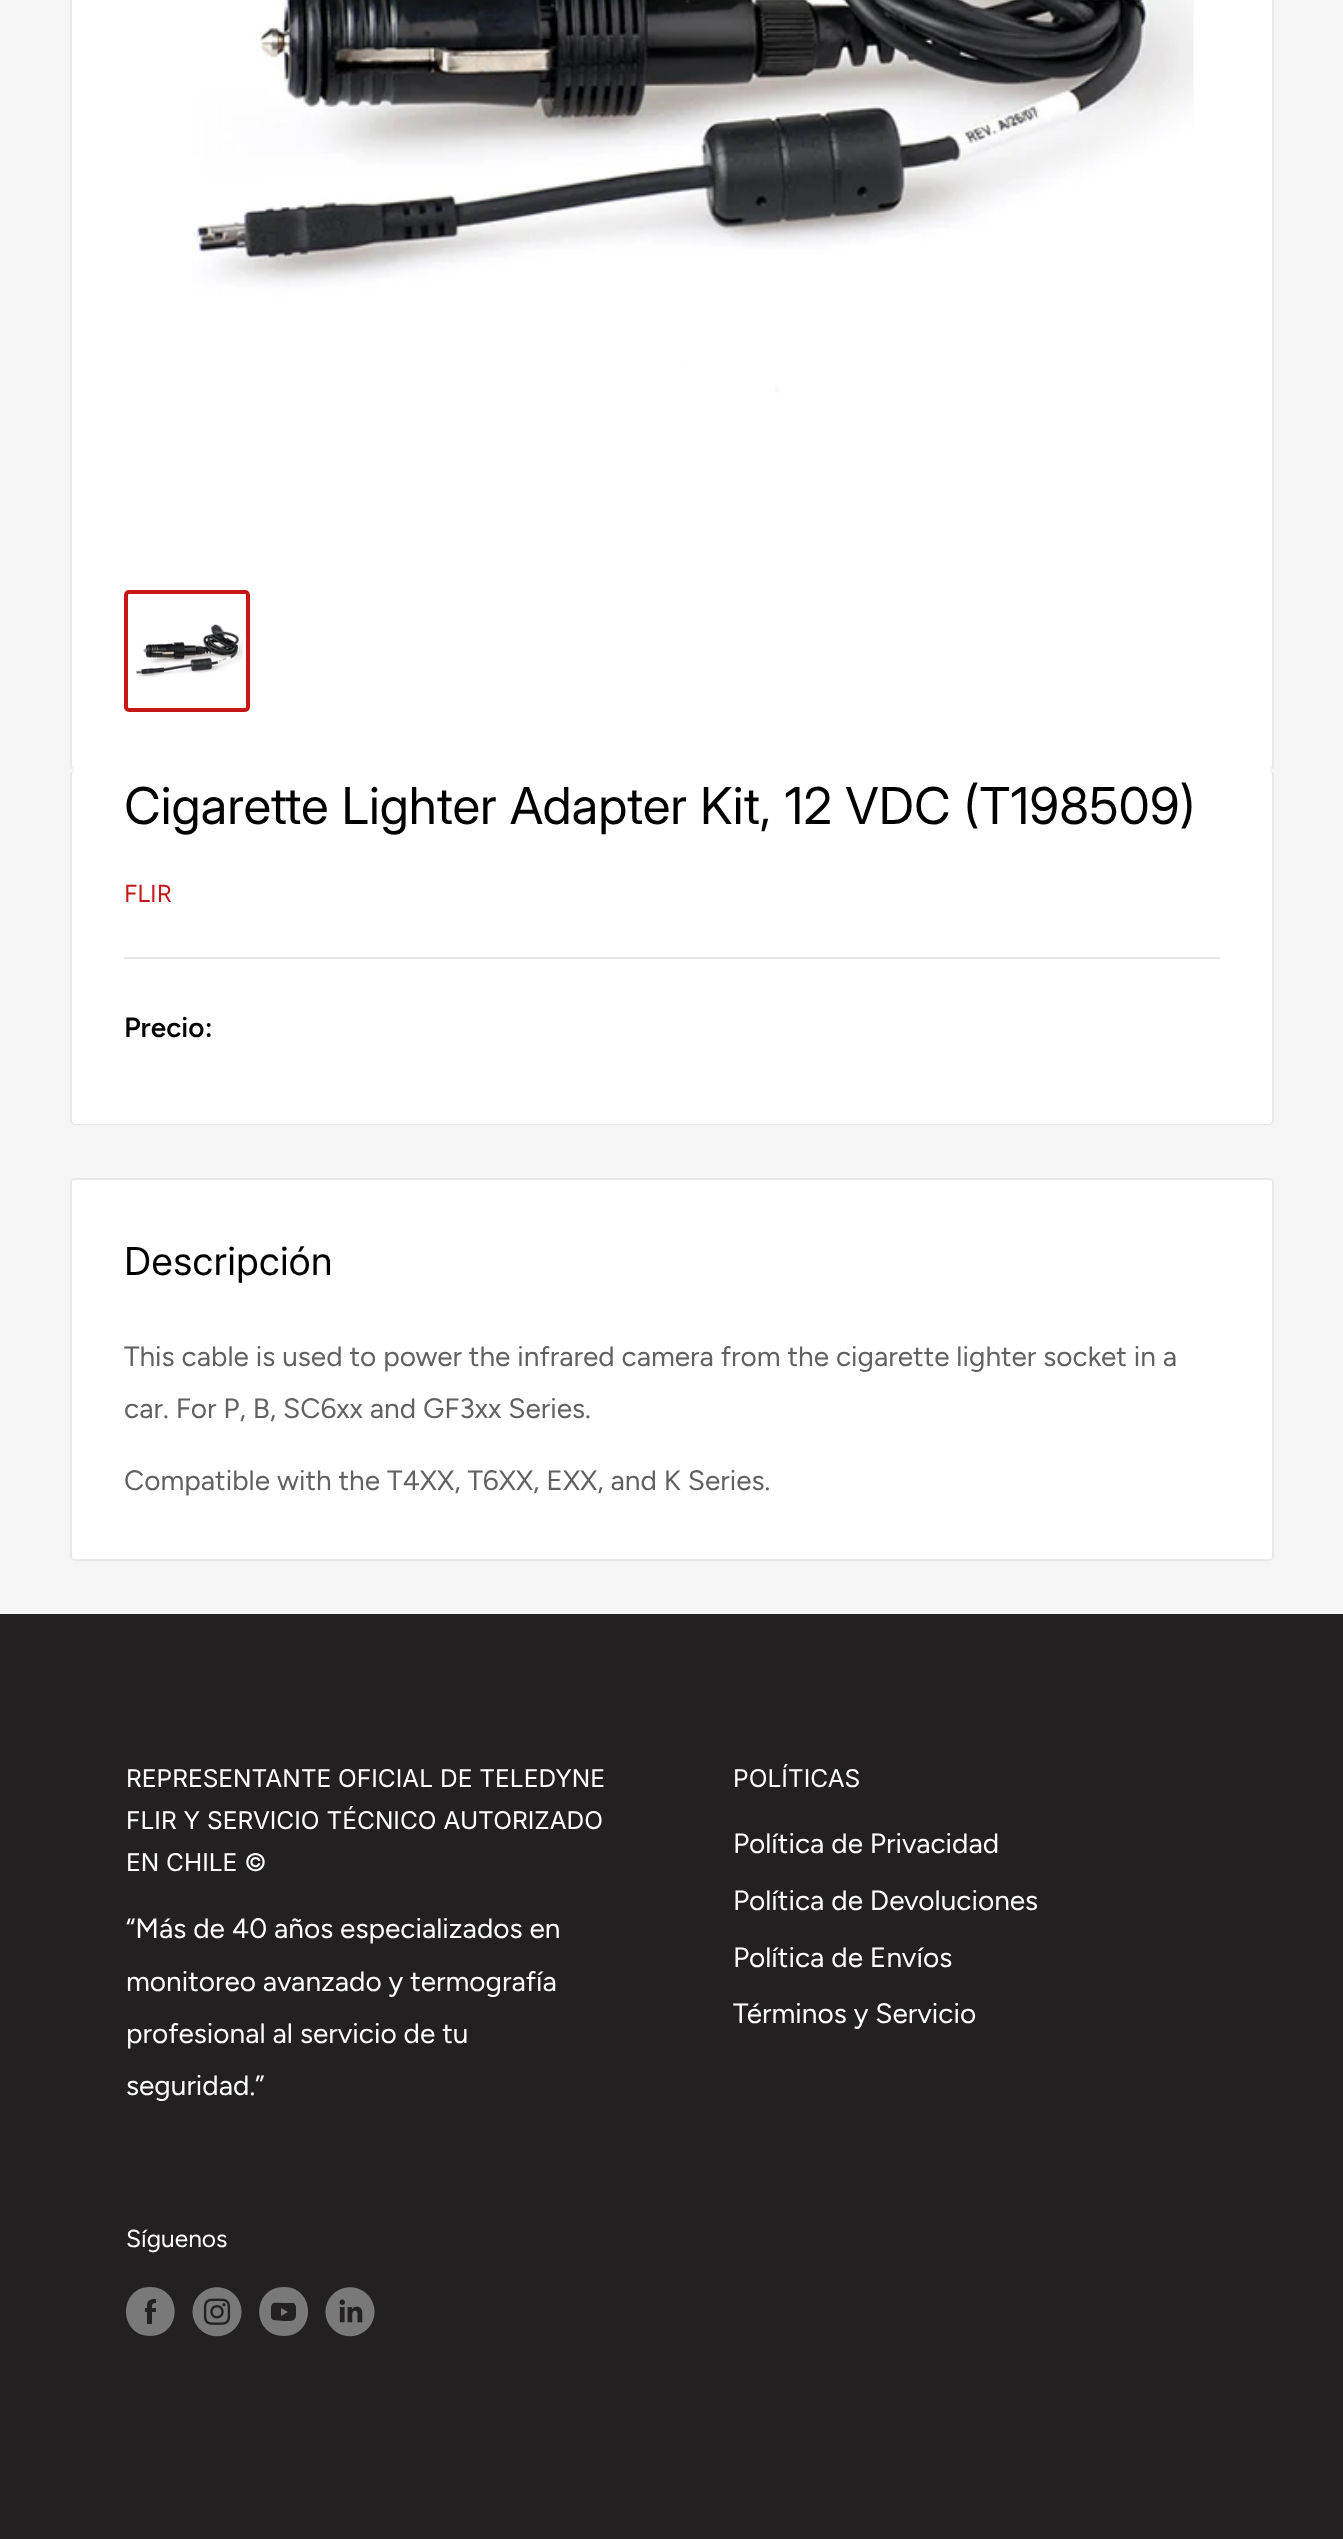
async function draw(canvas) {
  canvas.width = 1343
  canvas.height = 2539
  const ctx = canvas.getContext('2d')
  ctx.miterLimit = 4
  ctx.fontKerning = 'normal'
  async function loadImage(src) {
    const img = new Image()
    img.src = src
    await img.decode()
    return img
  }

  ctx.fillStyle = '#f5f5f5'
  ctx.fillRect(0, 0, 1343, 2539)
  ctx.fillStyle = '#fff'
  ctx.beginPath()
  ctx.roundRect(71, -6, 1202, 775, 4)
  ctx.fill()
  ctx.strokeStyle = '#e8e8e8'
  ctx.lineWidth = 2
  ctx.stroke()
  ctx.drawImage(await loadImage('image0.png'), 192, 0, 1002, 393)
  ctx.beginPath()
  ctx.roundRect(126, 592, 122, 118, 3)
  ctx.strokeStyle = '#c51618'
  ctx.lineWidth = 4
  ctx.stroke()
  ctx.drawImage(await loadImage('image1.png'), 136, 624, 108, 54)
  ctx.beginPath()
  ctx.moveTo(75, 768)
  ctx.bezierCurveTo(71, 768, 70, 772, 70, 775)
  ctx.bezierCurveTo(70, 772, 72, 770, 75, 770)
  ctx.lineTo(1269, 770)
  ctx.bezierCurveTo(1272, 770, 1274, 772, 1274, 775)
  ctx.bezierCurveTo(1274, 772, 1273, 768, 1269, 768)
  ctx.closePath()
  ctx.fill()
  ctx.beginPath()
  ctx.roundRect(70, 770, 1204, 355, 5)
  ctx.fill()
  ctx.fillStyle = '#e8e8e8'
  ctx.beginPath()
  ctx.moveTo(75, 770)
  ctx.lineTo(1269, 770)
  ctx.bezierCurveTo(1272, 770, 1274, 772, 1274, 775)
  ctx.lineTo(1274, 1120)
  ctx.bezierCurveTo(1274, 1123, 1272, 1125, 1269, 1125)
  ctx.lineTo(75, 1125)
  ctx.bezierCurveTo(72, 1125, 70, 1123, 70, 1120)
  ctx.lineTo(70, 775)
  ctx.bezierCurveTo(70, 772, 72, 770, 75, 770)
  ctx.closePath()
  ctx.moveTo(75, 770)
  ctx.lineTo(1269, 770)
  ctx.bezierCurveTo(1271, 770, 1272, 772, 1272, 775)
  ctx.lineTo(1272, 1120)
  ctx.bezierCurveTo(1272, 1122, 1271, 1124, 1269, 1124)
  ctx.lineTo(75, 1124)
  ctx.bezierCurveTo(73, 1124, 72, 1122, 72, 1120)
  ctx.lineTo(72, 775)
  ctx.bezierCurveTo(72, 772, 73, 770, 75, 770)
  ctx.closePath()
  ctx.fill('evenodd')
  ctx.font = '50.75px Inter'
  ctx.fillStyle = '#000'
  ctx.fillText('Cigarette Lighter Adapter Kit, 12 VDC (T198509)', 124, 824)
  ctx.font = '24.5px Figtree'
  ctx.fillStyle = '#c51618'
  ctx.fillText('FLIR', 124, 902)
  ctx.fillStyle = '#e8e8e8'
  ctx.fillRect(124, 957, 1096, 2)
  ctx.font = '600 28px Figtree'
  ctx.fillStyle = '#000'
  ctx.fillText('Precio:', 124, 1037)
  ctx.fillStyle = '#fff'
  ctx.beginPath()
  ctx.roundRect(71, 1179, 1202, 381, 4)
  ctx.fill()
  ctx.strokeStyle = '#e8e8e8'
  ctx.lineWidth = 2
  ctx.stroke()
  ctx.font = '38.5px "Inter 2"'
  ctx.fillStyle = '#000'
  ctx.fillText('Descripción', 124, 1275)
  ctx.font = '28px Figtree'
  ctx.fillStyle = '#616161'
  ctx.fillText('This cable is used to power the infrared camera from the cigarette lighter socket in a', 124, 1366)
  ctx.fillText('car. For P, B, SC6xx and GF3xx Series.', 124, 1418)
  ctx.fillText('Compatible with the T4XX, T6XX, EXX, and K Series.', 124, 1490)
  ctx.fillStyle = '#222021'
  ctx.fillRect(0, 1614, 1343, 925)
  ctx.font = '24.5px "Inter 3"'
  ctx.fillStyle = '#fff'
  ctx.fillText('REPRESENTANTE OFICIAL DE TELEDYNE', 126, 1787)
  ctx.fillText('FLIR Y SERVICIO TÉCNICO AUTORIZADO', 126, 1829)
  ctx.fillText('EN CHILE ©', 126, 1871)
  ctx.font = '28px Figtree'
  ctx.fillText('“Más de 40 años especializados en', 126, 1938)
  ctx.fillText('monitoreo avanzado y termografía', 126, 1991)
  ctx.fillText('profesional al servicio de tu', 126, 2043)
  ctx.fillText('seguridad.”', 126, 2095)
  ctx.font = '24.5px "Inter 3"'
  ctx.fillText('POLÍTICAS', 733, 1787)
  ctx.font = '28px Figtree'
  ctx.fillText('Política de Privacidad', 733, 1853)
  ctx.fillText('Política de Devoluciones', 733, 1910)
  ctx.fillText('Política de Envíos', 733, 1967)
  ctx.fillText('Términos y Servicio', 733, 2023)
  ctx.font = '24.5px Figtree'
  ctx.fillText('Síguenos', 126, 2247)
  ctx.fillStyle = '#7a797a'
  ctx.beginPath()
  ctx.moveTo(150, 2336)
  ctx.bezierCurveTo(118, 2336, 118, 2287, 150, 2287)
  ctx.bezierCurveTo(183, 2287, 183, 2336, 150, 2336)
  ctx.closePath()
  ctx.moveTo(156, 2308)
  ctx.lineTo(152, 2308)
  ctx.bezierCurveTo(152, 2304, 152, 2303, 156, 2303)
  ctx.lineTo(156, 2299)
  ctx.bezierCurveTo(148, 2299, 147, 2301, 147, 2308)
  ctx.lineTo(145, 2308)
  ctx.lineTo(145, 2312)
  ctx.lineTo(147, 2312)
  ctx.lineTo(147, 2324)
  ctx.lineTo(152, 2324)
  ctx.lineTo(152, 2312)
  ctx.lineTo(156, 2312)
  ctx.closePath()
  ctx.fill('evenodd')
  ctx.drawImage(await loadImage('image2.png'), 192, 2287, 50, 50)
  ctx.beginPath()
  ctx.moveTo(284, 2336)
  ctx.bezierCurveTo(316, 2336, 316, 2287, 284, 2287)
  ctx.bezierCurveTo(251, 2287, 251, 2336, 284, 2336)
  ctx.closePath()
  ctx.moveTo(296, 2306)
  ctx.lineTo(296, 2314)
  ctx.bezierCurveTo(296, 2322, 291, 2321, 284, 2321)
  ctx.lineTo(273, 2320)
  ctx.lineTo(271, 2318)
  ctx.lineTo(271, 2309)
  ctx.bezierCurveTo(271, 2301, 275, 2303, 282, 2303)
  ctx.lineTo(294, 2303)
  ctx.closePath()
  ctx.moveTo(281, 2316)
  ctx.lineTo(288, 2312)
  ctx.lineTo(281, 2308)
  ctx.closePath()
  ctx.fill('evenodd')
  ctx.drawImage(await loadImage('image3.png'), 325, 2287, 50, 50)
}

draw(document.querySelector('canvas'))
